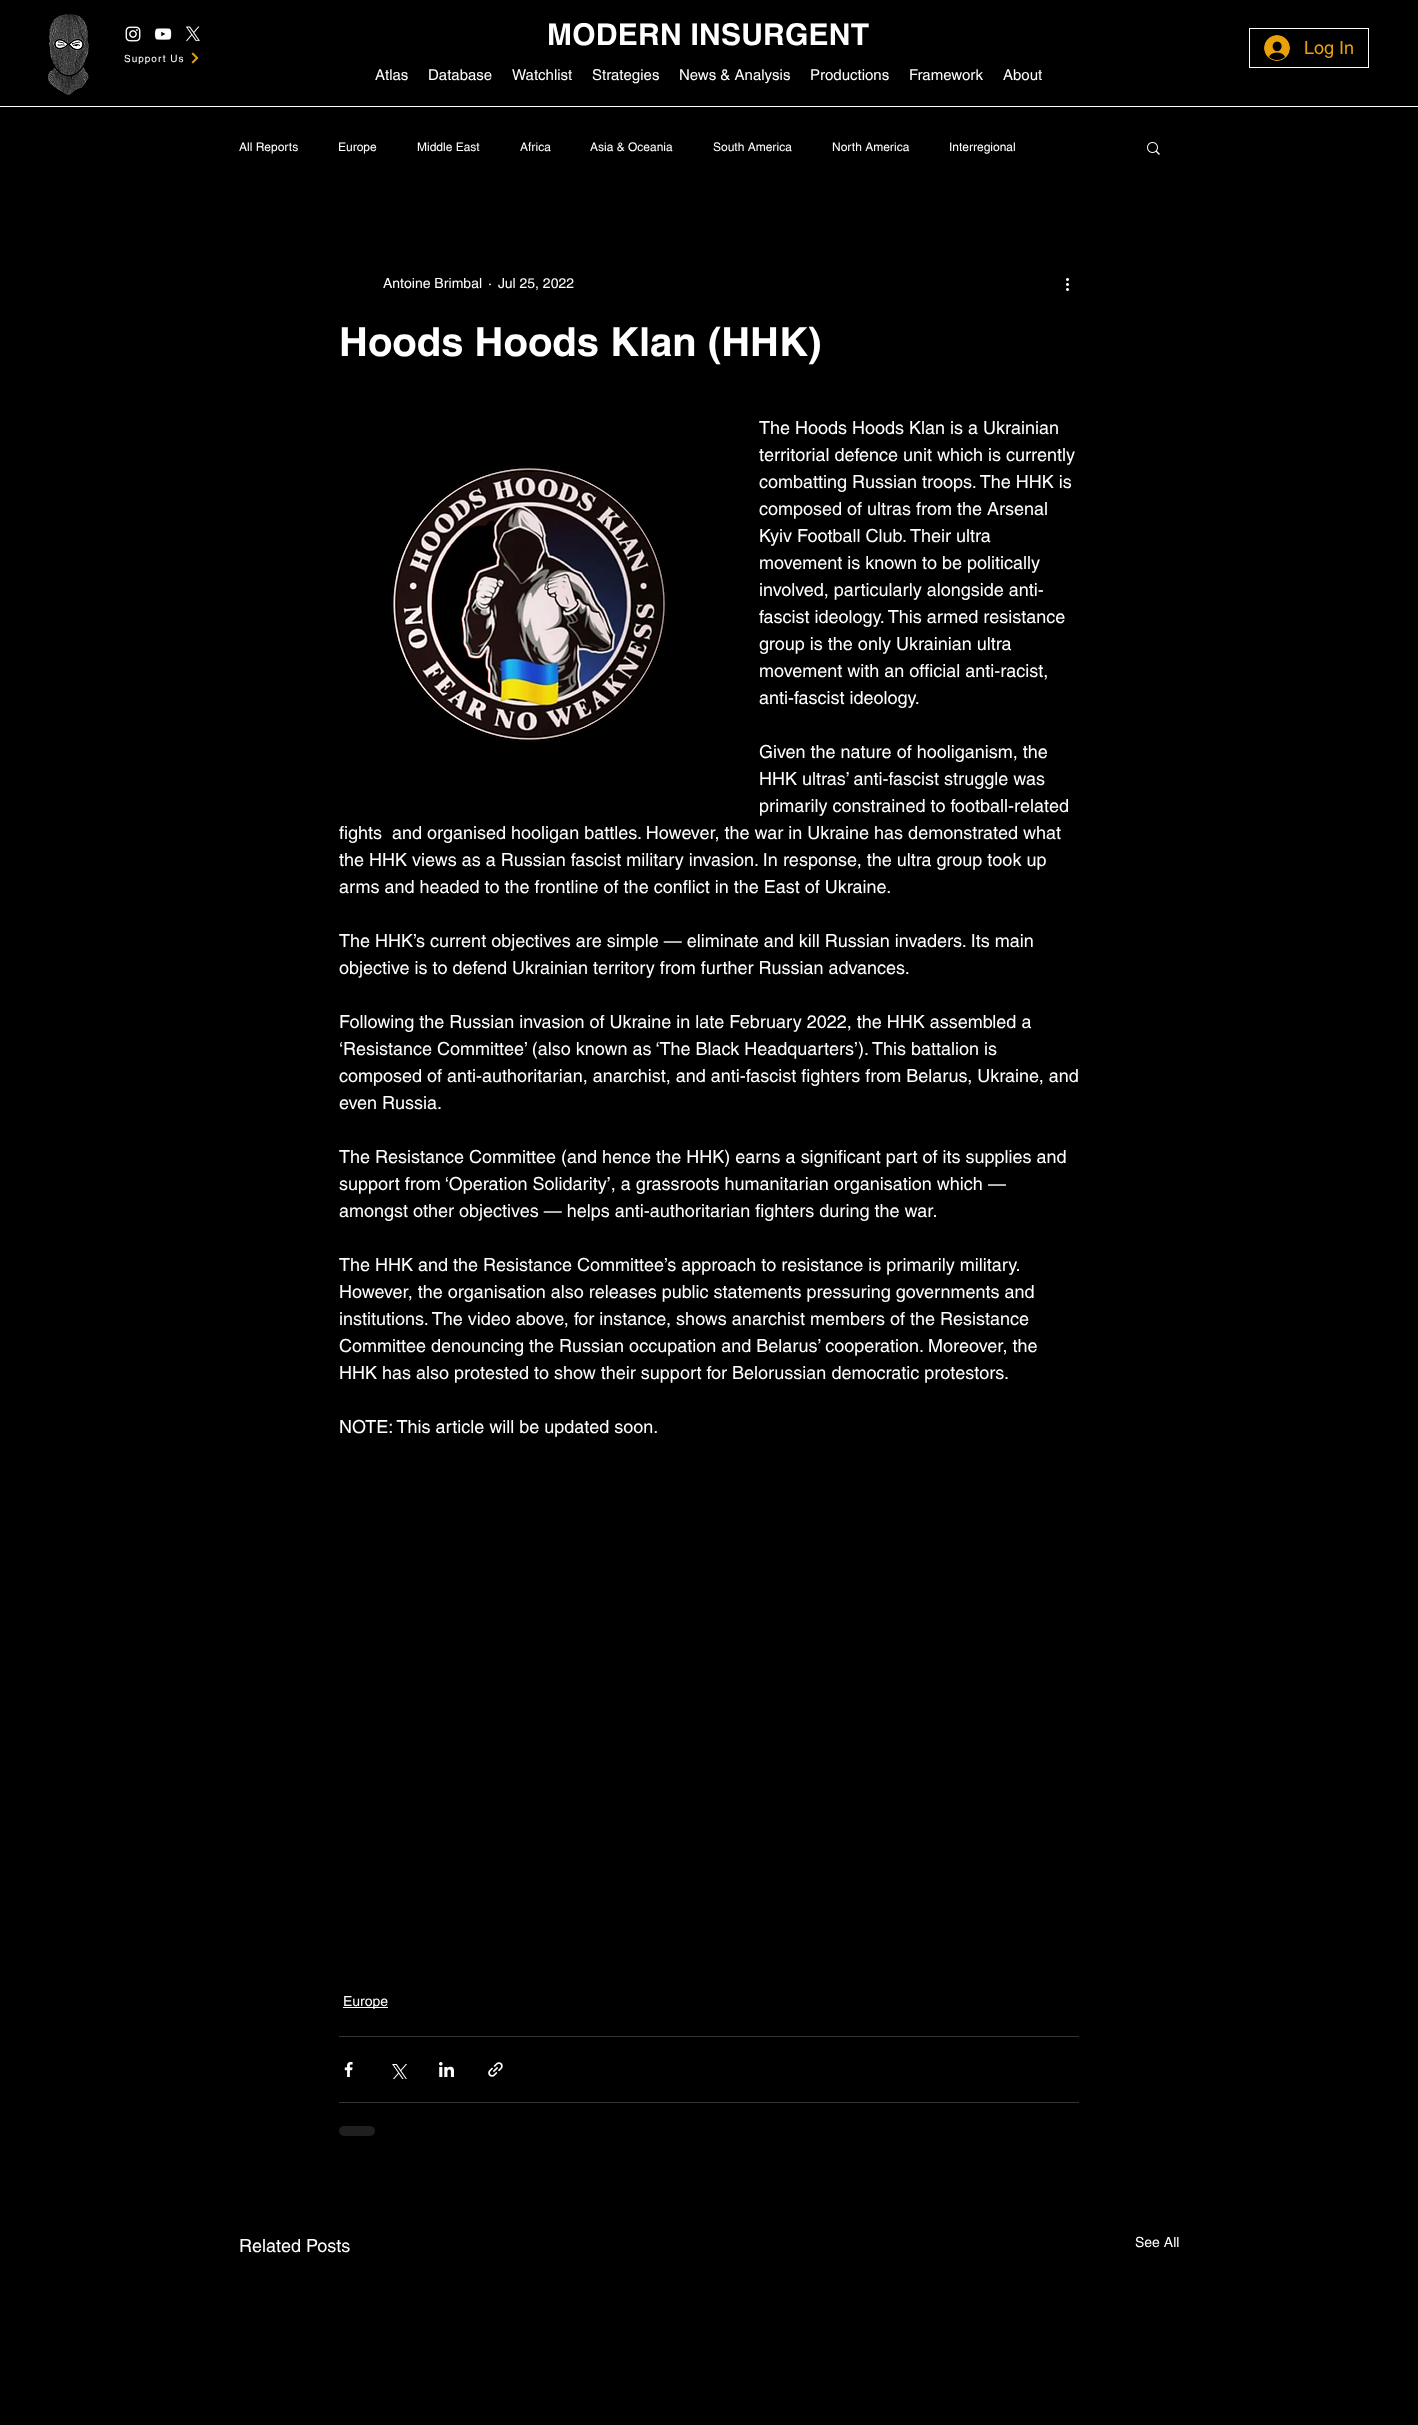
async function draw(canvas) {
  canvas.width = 1418
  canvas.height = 2425
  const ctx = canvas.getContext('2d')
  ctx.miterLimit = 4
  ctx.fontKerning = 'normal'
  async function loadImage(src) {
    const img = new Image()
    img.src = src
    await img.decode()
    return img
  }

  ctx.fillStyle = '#000'
  ctx.fillRect(0, 0, 1418, 2425)
  ctx.drawImage(await loadImage('image0.png'), 47, 14, 42, 81)
  ctx.drawImage(await loadImage('image1.png'), 125, 26, 16, 16)
  ctx.drawImage(await loadImage('image2.png'), 154, 28, 18, 12)
  ctx.drawImage(await loadImage('image3.png'), 185, 26, 15, 16)
  ctx.letterSpacing = '0.25px'
  ctx.font = 'bold 30px helvetica'
  ctx.fillStyle = '#fff'
  ctx.fillText('MODERN INSURGENT', 547, 45)
  ctx.strokeStyle = '#fff'
  ctx.strokeRect(1249.5, 28.5, 119, 39)
  ctx.drawImage(await loadImage('image4.png'), 1264, 35, 26, 26)
  ctx.letterSpacing = '0px'
  ctx.font = '18px helvetica'
  ctx.fillStyle = '#e8a10d'
  ctx.fillText('Log In', 1304, 54)
  ctx.letterSpacing = '1px'
  ctx.font = '10px helvetica'
  ctx.fillStyle = '#fff'
  ctx.fillText('Support Us', 124, 62)
  ctx.drawImage(await loadImage('image5.png'), 191, 52, 8, 12)
  ctx.letterSpacing = '0px'
  ctx.font = '15px helvetica'
  ctx.fillText('Atlas', 375, 80)
  ctx.fillText('Database', 428, 80)
  ctx.fillText('Watchlist', 512, 80)
  ctx.fillText('Strategies', 592, 80)
  ctx.fillText('News & Analysis', 679, 80)
  ctx.fillText('Productions', 810, 80)
  ctx.fillText('Framework', 909, 80)
  ctx.fillText('About', 1003, 80)
  ctx.fillRect(0, 106, 1418, 1)
  ctx.font = '12px helvetica'
  ctx.fillText('All Reports', 239, 151)
  ctx.fillText('Europe', 338, 151)
  ctx.fillText('Middle East', 417, 151)
  ctx.fillText('Africa', 520, 151)
  ctx.fillText('Asia & Oceania', 590, 151)
  ctx.fillText('South America', 713, 151)
  ctx.fillText('North America', 832, 151)
  ctx.fillText('Interregional', 949, 151)
  ctx.drawImage(await loadImage('image6.png'), 1147, 142, 13, 13)
  ctx.font = '14px helvetica'
  ctx.fillText('Antoine Brimbal', 383, 288)
  ctx.fillText('·', 488, 288)
  ctx.fillText('Jul 25, 2022', 498, 288)
  ctx.drawImage(await loadImage('image7.png'), 1066, 278, 3, 13)
  ctx.font = 'bold 40px helvetica'
  ctx.fillText('Hoods Hoods Klan (HHK)', 339, 356)
  ctx.drawImage(await loadImage('image8.png'), 391, 466, 276, 276)
  ctx.font = '18px helvetica'
  ctx.fillText('The Hoods Hoods Klan is a Ukrainian', 759, 434)
  ctx.fillText('territorial defence unit which is currently', 759, 461)
  ctx.fillText('combatting Russian troops. The HHK is', 759, 488)
  ctx.fillText('composed of ultras from the Arsenal', 759, 515)
  ctx.fillText('Kyiv Football Club. Their ultra', 759, 542)
  ctx.fillText('movement is known to be politically', 759, 569)
  ctx.fillText('involved, particularly alongside anti-', 759, 596)
  ctx.fillText('fascist ideology. This armed resistance', 759, 623)
  ctx.fillText('group is the only Ukrainian ultra', 759, 650)
  ctx.fillText('movement with an official anti-racist,', 759, 677)
  ctx.fillText('anti-fascist ideology.', 759, 704)
  ctx.fillText('Given the nature of hooliganism, the', 759, 758)
  ctx.fillText('HHK ultras’ anti-fascist struggle was', 759, 785)
  ctx.fillText('primarily constrained to football-related', 759, 812)
  ctx.fillText('fights  and organised hooligan battles. However, the war in Ukraine has demonstrated what', 339, 839)
  ctx.fillText('the HHK views as a Russian fascist military invasion. In response, the ultra group took up', 339, 866)
  ctx.fillText('arms and headed to the frontline of the conflict in the East of Ukraine.', 339, 893)
  ctx.fillText('The HHK’s current objectives are simple — eliminate and kill Russian invaders. Its main', 339, 947)
  ctx.fillText('objective is to defend Ukrainian territory from further Russian advances.', 339, 974)
  ctx.fillText('Following the Russian invasion of Ukraine in late February 2022, the HHK assembled a', 339, 1028)
  ctx.fillText('‘Resistance Committee’ (also known as ‘The Black Headquarters’). This battalion is', 339, 1055)
  ctx.fillText('composed of anti-authoritarian, anarchist, and anti-fascist fighters from Belarus, Ukraine, and', 339, 1082)
  ctx.fillText('even Russia.', 339, 1109)
  ctx.fillText('The Resistance Committee (and hence the HHK) earns a significant part of its supplies and', 339, 1163)
  ctx.fillText('support from ‘Operation Solidarity’, a grassroots humanitarian organisation which —', 339, 1190)
  ctx.fillText('amongst other objectives — helps anti-authoritarian fighters during the war.', 339, 1217)
  ctx.fillText('The HHK and the Resistance Committee’s approach to resistance is primarily military.', 339, 1271)
  ctx.fillText('However, the organisation also releases public statements pressuring governments and', 339, 1298)
  ctx.fillText('institutions. The video above, for instance, shows anarchist members of the Resistance', 339, 1325)
  ctx.fillText('Committee denouncing the Russian occupation and Belarus’ cooperation. Moreover, the', 339, 1352)
  ctx.fillText('HHK has also protested to show their support for Belorussian democratic protestors.', 339, 1379)
  ctx.fillText('NOTE: This article will be updated soon.', 339, 1433)
  ctx.fillRect(343, 2007, 45, 1)
  ctx.font = '14px helvetica'
  ctx.fillText('Europe', 343, 2006)
  ctx.fillStyle = '#333'
  ctx.fillRect(339, 2036, 740, 1)
  ctx.drawImage(await loadImage('image9.png'), 344, 2062, 9, 15)
  ctx.drawImage(await loadImage('image10.png'), 392, 2064, 15, 15)
  ctx.drawImage(await loadImage('image11.png'), 439, 2062, 15, 15)
  ctx.drawImage(await loadImage('image12.png'), 488, 2062, 15, 15)
  ctx.fillRect(339, 2102, 740, 1)
  ctx.fillStyle = '#1f1f1f'
  ctx.beginPath()
  ctx.roundRect(339, 2126, 36, 10, 5)
  ctx.fill()
  ctx.font = '18px helvetica'
  ctx.fillStyle = '#fff'
  ctx.fillText('Related Posts', 239, 2252)
  ctx.font = '14px helvetica'
  ctx.fillText('See All', 1135, 2247)
}

draw(document.querySelector('canvas'))
